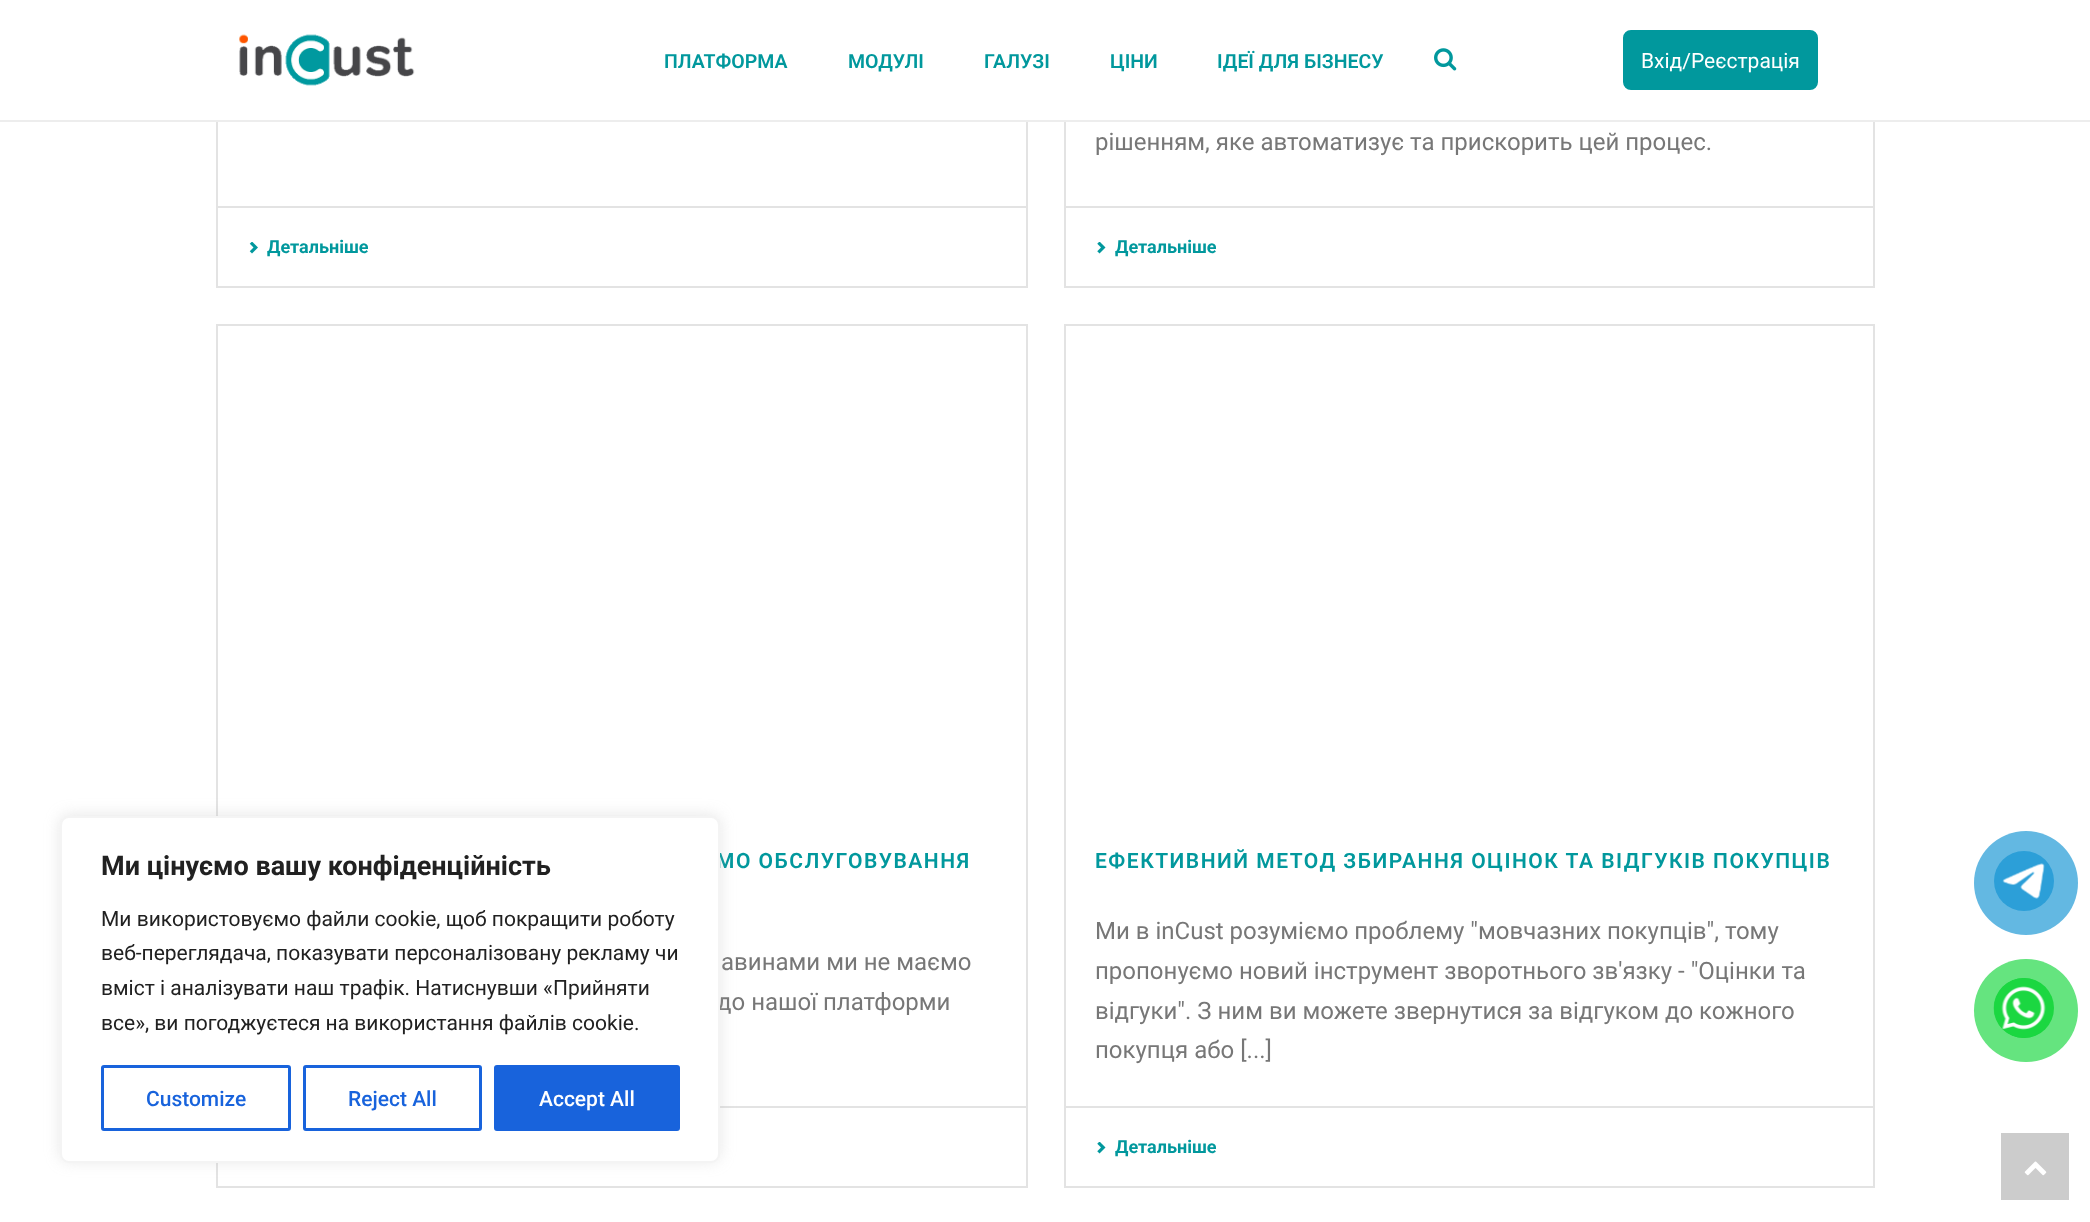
async function draw(canvas) {
  canvas.width = 2090
  canvas.height = 1222
  const ctx = canvas.getContext('2d')
  ctx.miterLimit = 4
  ctx.fontKerning = 'normal'
  async function loadImage(src) {
    const img = new Image()
    img.src = src
    await img.decode()
    return img
  }

  ctx.fillStyle = '#fff'
  ctx.fillRect(0, 0, 2090, 1222)
  ctx.strokeStyle = '#e3e3e3'
  ctx.lineWidth = 2
  ctx.strokeRect(217, -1, 810, 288)
  ctx.strokeRect(1065, -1, 809, 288)
  ctx.fillStyle = '#ededed'
  ctx.fillRect(0, 120, 2090, 2)
  ctx.fillStyle = '#fff'
  ctx.fillRect(216, 0, 1659, 120)
  ctx.drawImage(await loadImage('image0.png'), 239, 34, 176, 52)
  ctx.font = '600 19.5px Roboto'
  ctx.fillStyle = '#01989d'
  ctx.fillText('ПЛАТФОРМА', 664, 68)
  ctx.fillText('МОДУЛІ', 848, 68)
  ctx.fillText('ГАЛУЗІ', 984, 68)
  ctx.fillText('ЦІНИ', 1110, 68)
  ctx.fillText('ІДЕЇ ДЛЯ БІЗНЕСУ', 1217, 68)
  ctx.drawImage(await loadImage('image1.png'), 1434, 48, 23, 23)
  ctx.beginPath()
  ctx.roundRect(1624.5, 31.5, 192, 57, 6.5)
  ctx.fill()
  ctx.strokeStyle = '#01989d'
  ctx.lineWidth = 3
  ctx.stroke()
  ctx.font = '21px Roboto'
  ctx.fillStyle = '#fff'
  ctx.fillText('Вхід/Реєстрація', 1641, 68)
  ctx.fillStyle = '#e3e3e3'
  ctx.fillRect(218, 206, 808, 2)
  ctx.drawImage(await loadImage('image2.png'), 249, 242, 9, 12)
  ctx.font = 'bold 18px Roboto'
  ctx.fillStyle = '#01989d'
  ctx.fillText('Детальніше', 267, 253)
  ctx.font = '24px Roboto'
  ctx.fillStyle = '#777'
  ctx.fillText('рішенням, яке автоматизує та прискорить цей процес.', 1095, 150)
  ctx.fillStyle = '#e3e3e3'
  ctx.fillRect(1065, 206, 809, 2)
  ctx.drawImage(await loadImage('image3.png'), 1097, 242, 9, 12)
  ctx.font = 'bold 18px Roboto'
  ctx.fillStyle = '#01989d'
  ctx.fillText('Детальніше', 1115, 253)
  ctx.strokeStyle = '#e3e3e3'
  ctx.lineWidth = 2
  ctx.strokeRect(217, 325, 810, 862)
  ctx.letterSpacing = '1.5px'
  ctx.font = '600 21px Roboto'
  ctx.fillText('МО ОБСЛУГОВУВАННЯ', 716, 868)
  ctx.letterSpacing = '0px'
  ctx.font = '24px Roboto'
  ctx.fillStyle = '#777'
  ctx.fillText('авинами ми не маємо', 721, 970)
  ctx.fillText('до нашої платформи', 717, 1010)
  ctx.fillStyle = '#e3e3e3'
  ctx.fillRect(720, 1106, 306, 2)
  ctx.strokeRect(1065, 325, 809, 862)
  ctx.letterSpacing = '1.5px'
  ctx.font = '600 21px Roboto'
  ctx.fillStyle = '#01989d'
  ctx.fillText('ЕФЕКТИВНИЙ МЕТОД ЗБИРАННЯ ОЦІНОК ТА ВІДГУКІВ ПОКУПЦІВ', 1095, 868)
  ctx.letterSpacing = '0px'
  ctx.font = '24px Roboto'
  ctx.fillStyle = '#777'
  ctx.fillText('Ми в inCust розуміємо проблему "мовчазних покупців", тому', 1095, 939)
  ctx.fillText('пропонуємо новий інструмент зворотнього зв\'язку - "Оцінки та', 1095, 979)
  ctx.fillText('відгуки". З ним ви можете звернутися за відгуком до кожного', 1095, 1019)
  ctx.fillText('покупця або [...]', 1095, 1058)
  ctx.fillStyle = '#e3e3e3'
  ctx.fillRect(1065, 1106, 809, 2)
  ctx.drawImage(await loadImage('image3.png'), 1097, 1142, 9, 12)
  ctx.font = 'bold 18px Roboto'
  ctx.fillStyle = '#01989d'
  ctx.fillText('Детальніше', 1115, 1153)
  ctx.fillStyle = '#63b8e2'
  ctx.beginPath()
  ctx.arc(2026, 883, 52, 0, 2 * Math.PI)
  ctx.fill()
  ctx.fillStyle = '#2c9fd8'
  ctx.beginPath()
  ctx.arc(2024, 881, 30, 0, 2 * Math.PI)
  ctx.fill()
  ctx.drawImage(await loadImage('image4.png'), 2002, 863, 43, 36)
  ctx.fillStyle = '#65e47f'
  ctx.beginPath()
  ctx.roundRect(1974, 959, 104, 103, 51.5)
  ctx.fill()
  ctx.fillStyle = '#1cd741'
  ctx.beginPath()
  ctx.arc(2024, 1008, 30, 0, 2 * Math.PI)
  ctx.fill()
  ctx.drawImage(await loadImage('image5.png'), 1993, 978, 53, 60)
  ctx.fillStyle = '#acabab4d'
  ctx.filter = 'blur(7.5px)'
  ctx.beginPath()
  ctx.roundRect(60, 815, 660, 346, 9)
  ctx.fill()
  ctx.filter = 'none'
  ctx.fillStyle = '#fff'
  ctx.beginPath()
  ctx.roundRect(61, 817, 658, 345, 8)
  ctx.fill()
  ctx.strokeStyle = '#f4f4f4'
  ctx.stroke()
  ctx.font = 'bold 27px Roboto'
  ctx.fillStyle = '#212121'
  ctx.fillText('Ми цінуємо вашу конфіденційність', 101, 875)
  ctx.font = '21px Roboto'
  ctx.fillText('Ми використовуємо файли cookie, щоб покращити роботу', 101, 926)
  ctx.fillText('веб-переглядача, показувати персоналізовану рекламу чи', 101, 960)
  ctx.fillText('вміст і аналізувати наш трафік. Натиснувши «Прийняти', 101, 995)
  ctx.fillText('все», ви погоджуєтеся на використання файлів cookie.', 101, 1030)
  ctx.beginPath()
  ctx.roundRect(102.5, 1066.5, 187, 63, 1.5)
  ctx.strokeStyle = '#1863dc'
  ctx.lineWidth = 3
  ctx.stroke()
  ctx.font = '500 21px Roboto'
  ctx.fillStyle = '#1863dc'
  ctx.fillText('Customize', 146, 1106)
  ctx.beginPath()
  ctx.roundRect(304.5, 1066.5, 176, 63, 1.5)
  ctx.stroke()
  ctx.fillText('Reject All', 348, 1106)
  ctx.beginPath()
  ctx.roundRect(495.5, 1066.5, 183, 63, 1.5)
  ctx.fill()
  ctx.stroke()
  ctx.fillStyle = '#fff'
  ctx.fillText('Accept All', 539, 1106)
  ctx.fillStyle = '#ccc'
  ctx.fillRect(2001, 1133, 68, 67)
  ctx.drawImage(await loadImage('image6.png'), 2024, 1161, 23, 15)
}

draw(document.querySelector('canvas'))
